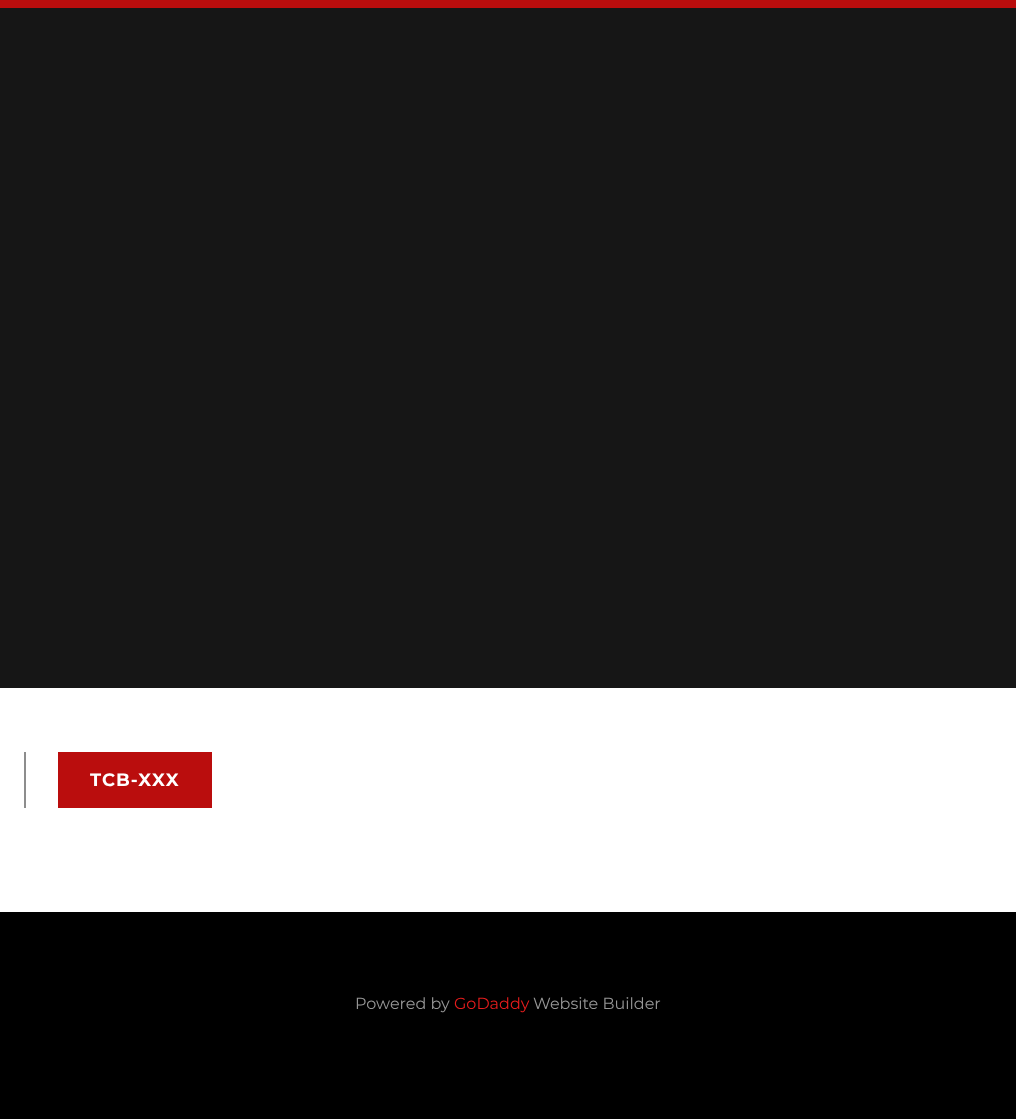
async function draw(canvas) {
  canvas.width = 1016
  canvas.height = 1119
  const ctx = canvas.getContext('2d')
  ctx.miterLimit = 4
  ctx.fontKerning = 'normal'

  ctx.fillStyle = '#000'
  ctx.fillRect(0, 0, 1016, 1119)
  ctx.fillStyle = '#161616'
  ctx.fillRect(0, 8, 1016, 680)
  ctx.fillStyle = '#ba0d0d'
  ctx.fillRect(0, 0, 1016, 8)
  ctx.fillStyle = '#fff'
  ctx.fillRect(0, 688, 1016, 224)
  ctx.fillStyle = '#8d8d8d'
  ctx.fillRect(24, 752, 2, 56)
  ctx.fillStyle = '#ba0d0d'
  ctx.fillRect(58, 752, 154, 56)
  ctx.letterSpacing = '1px'
  ctx.font = 'bold 18px Montserrat'
  ctx.fillStyle = '#fff'
  ctx.fillText('TCB-XXX', 90, 786)
  ctx.letterSpacing = '0px'
  ctx.font = '16px Montserrat'
  ctx.fillStyle = '#969696'
  ctx.fillText('Powered by', 355, 1009)
  ctx.fillStyle = '#e51c1c'
  ctx.fillText('GoDaddy', 454, 1009)
  ctx.fillStyle = '#969696'
  ctx.fillText('Website Builder', 533, 1009)
}

draw(document.querySelector('canvas'))
